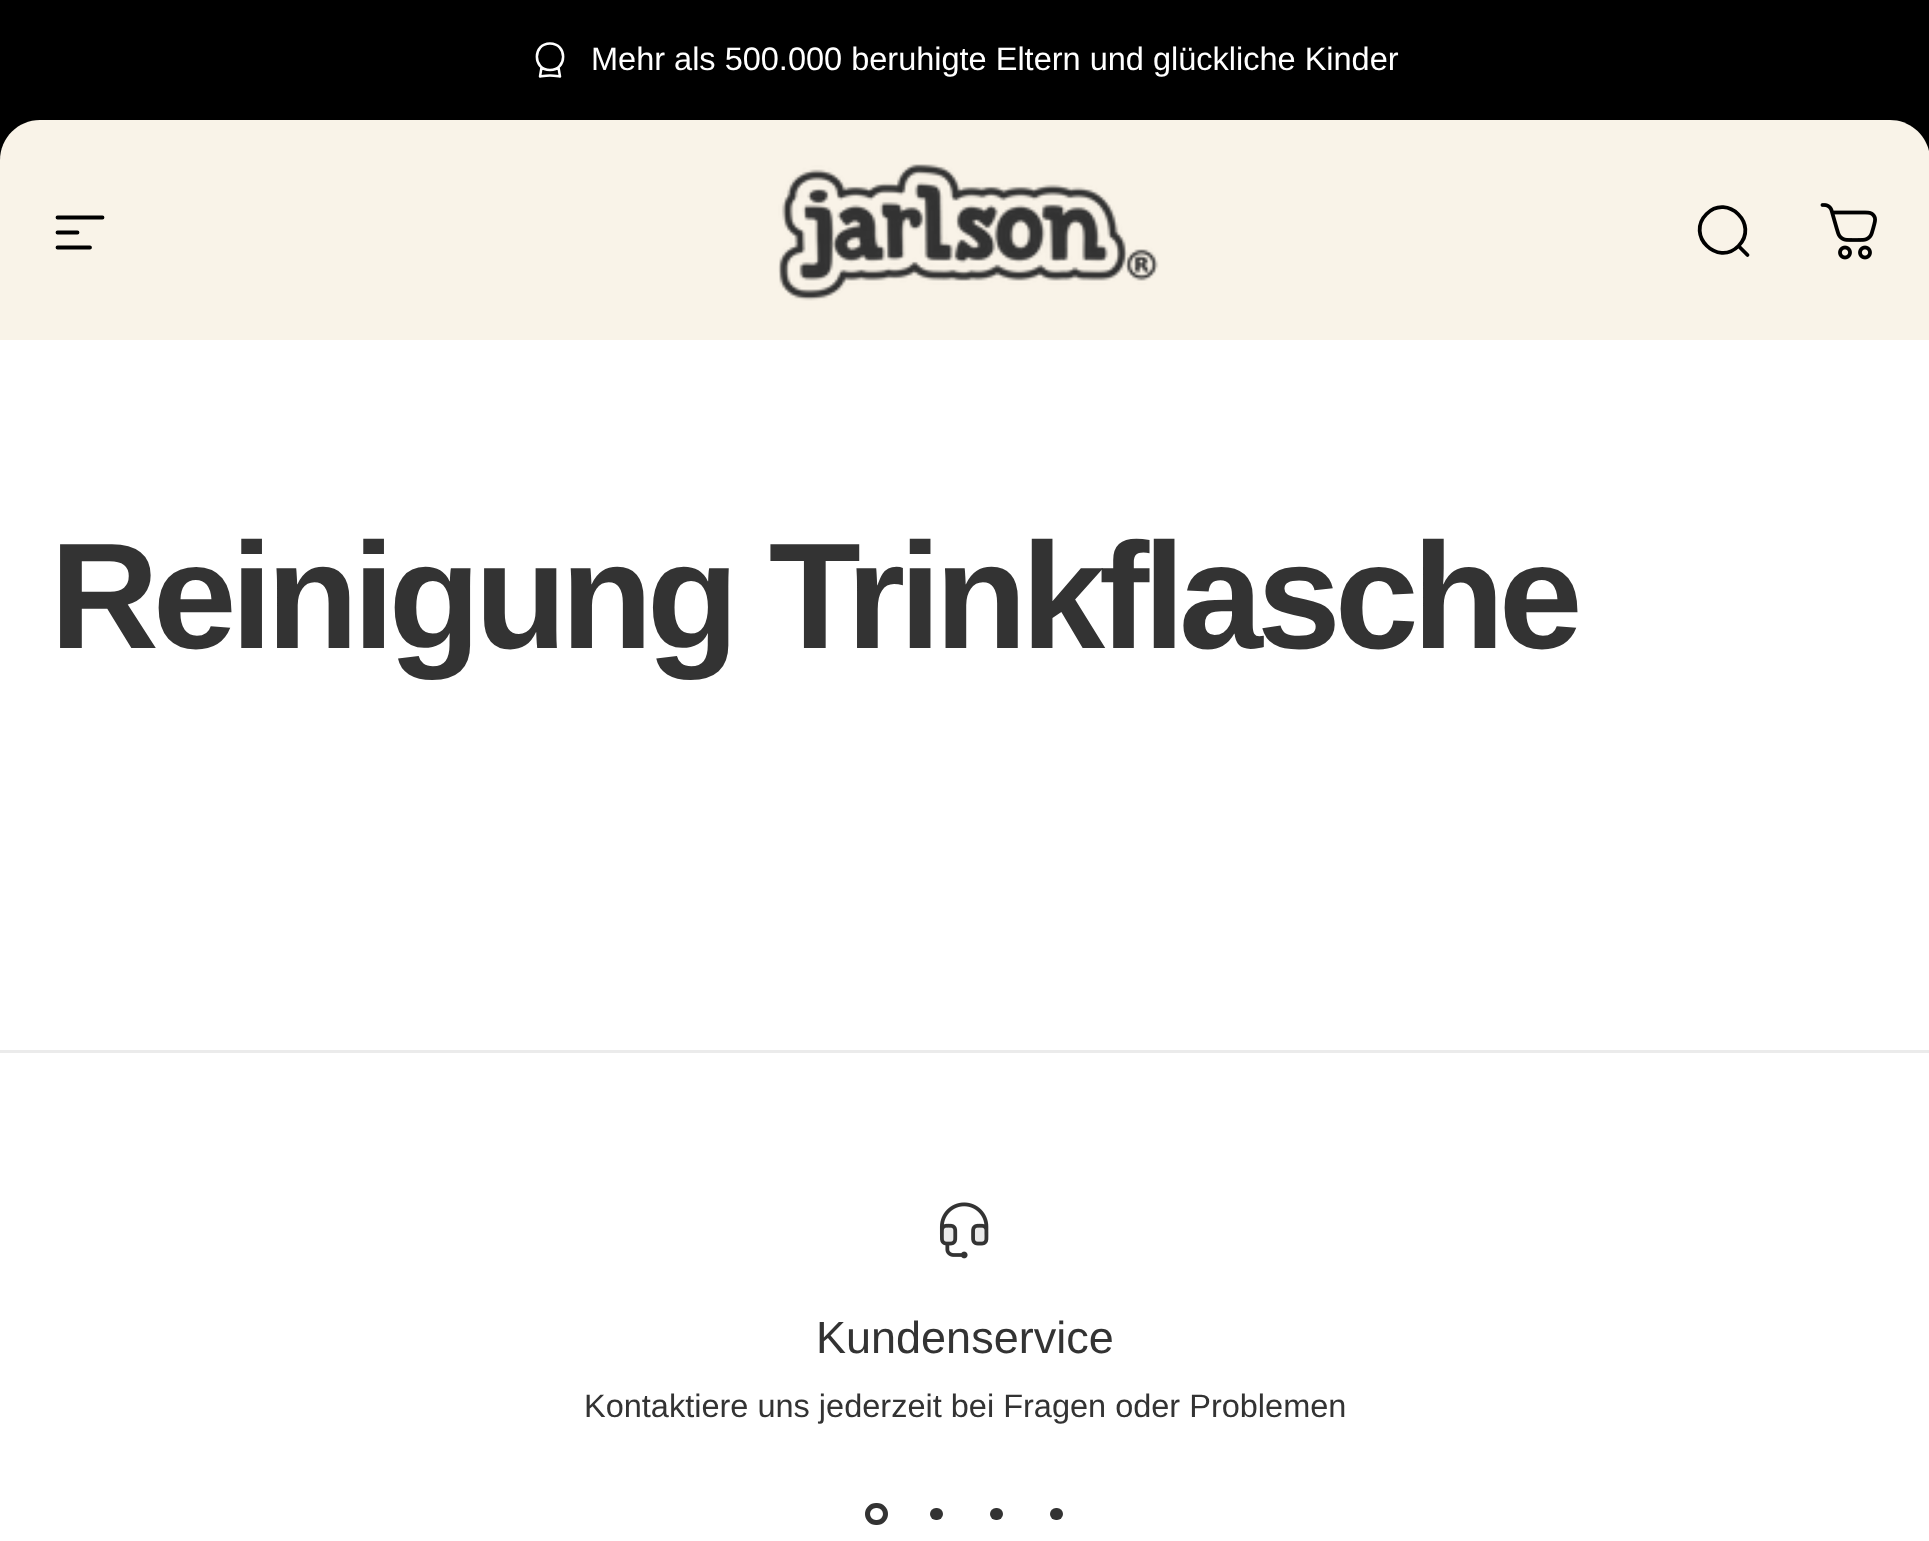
async function draw(canvas) {
  canvas.width = 1929
  canvas.height = 1541
  const ctx = canvas.getContext('2d')
  ctx.miterLimit = 4
  ctx.fontKerning = 'normal'
  async function loadImage(src) {
    const img = new Image()
    img.src = src
    await img.decode()
    return img
  }

  ctx.fillStyle = '#fff'
  ctx.fillRect(0, 0, 1929, 1541)
  ctx.fillStyle = '#000'
  ctx.fillRect(0, 0, 1929, 40)
  ctx.beginPath()
  ctx.moveTo(40, 0)
  ctx.lineTo(1890, 0)
  ctx.bezierCurveTo(1912, 0, 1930, 18, 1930, 40)
  ctx.lineTo(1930, 160)
  ctx.lineTo(0, 160)
  ctx.lineTo(0, 40)
  ctx.bezierCurveTo(0, 18, 18, 0, 40, 0)
  ctx.closePath()
  ctx.fill()
  ctx.beginPath()
  ctx.moveTo(541.5, 67.5)
  ctx.lineTo(540, 76.5)
  ctx.bezierCurveTo(543.5, 76, 546.5, 75.5, 550, 75.5)
  ctx.bezierCurveTo(553.5, 75.5, 556.5, 76, 560, 76.5)
  ctx.lineTo(558.5, 67.5)
  ctx.moveTo(550, 70)
  ctx.bezierCurveTo(532.5, 70, 532.5, 43.5, 550, 43.5)
  ctx.bezierCurveTo(567.5, 43.5, 567.5, 70, 550, 70)
  ctx.closePath()
  ctx.strokeStyle = '#fff'
  ctx.lineWidth = 2.5
  ctx.lineCap = 'round'
  ctx.lineJoin = 'round'
  ctx.stroke()
  ctx.font = '32.5px Liberation Sans'
  ctx.fillStyle = '#fff'
  ctx.fillText('Mehr als 500.000 beruhigte Eltern und glückliche Kinder', 591, 70)
  ctx.fillStyle = '#f9f3e8'
  ctx.beginPath()
  ctx.moveTo(40, 120)
  ctx.lineTo(1890, 120)
  ctx.bezierCurveTo(1912, 120, 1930, 138, 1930, 160)
  ctx.lineTo(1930, 340)
  ctx.lineTo(0, 340)
  ctx.lineTo(0, 160)
  ctx.bezierCurveTo(0, 138, 18, 120, 40, 120)
  ctx.closePath()
  ctx.fill()
  ctx.beginPath()
  ctx.moveTo(57.5, 217.5)
  ctx.lineTo(102.5, 217.5)
  ctx.moveTo(57.5, 232.5)
  ctx.lineTo(77.5, 232.5)
  ctx.moveTo(57.5, 247.5)
  ctx.lineTo(90, 247.5)
  ctx.strokeStyle = '#000'
  ctx.lineWidth = 3.8
  ctx.lineJoin = 'miter'
  ctx.stroke()
  ctx.drawImage(await loadImage('image0.png'), 778, 164, 381, 137)
  ctx.beginPath()
  ctx.moveTo(1747.5, 255)
  ctx.lineTo(1738.5, 246)
  ctx.moveTo(1738.5, 246)
  ctx.bezierCurveTo(1759.5, 225, 1727.5, 193, 1706.5, 214)
  ctx.bezierCurveTo(1685.5, 235, 1717.5, 267, 1738.5, 246)
  ctx.closePath()
  ctx.stroke()
  ctx.drawImage(await loadImage('image1.png'), 1820, 203, 57, 57)
  ctx.letterSpacing = '-6px'
  ctx.font = 'bold 150.75px Liberation Sans'
  ctx.fillStyle = '#333'
  ctx.fillText('Reinigung Trinkflasche', 50, 648)
  ctx.fillStyle = '#ebebeb'
  ctx.fillRect(0, 1050, 1929, 3)
  ctx.drawImage(await loadImage('image2.png'), 939, 1202, 50, 57)
  ctx.letterSpacing = '0px'
  ctx.font = '45px Liberation Sans'
  ctx.fillStyle = '#333'
  ctx.fillText('Kundenservice', 816, 1353)
  ctx.font = '32.5px Liberation Sans'
  ctx.fillText('Kontaktiere uns jederzeit bei Fragen oder Problemen', 584, 1417)
  ctx.beginPath()
  ctx.roundRect(867.5, 1505.5, 18, 17, 8.5)
  ctx.strokeStyle = '#333'
  ctx.lineWidth = 5
  ctx.stroke()
  ctx.beginPath()
  ctx.roundRect(930, 1508, 13, 12, 6)
  ctx.fill()
  ctx.beginPath()
  ctx.roundRect(990, 1508, 13, 12, 6)
  ctx.fill()
  ctx.beginPath()
  ctx.roundRect(1050, 1508, 13, 12, 6)
  ctx.fill()
}

draw(document.querySelector('canvas'))
